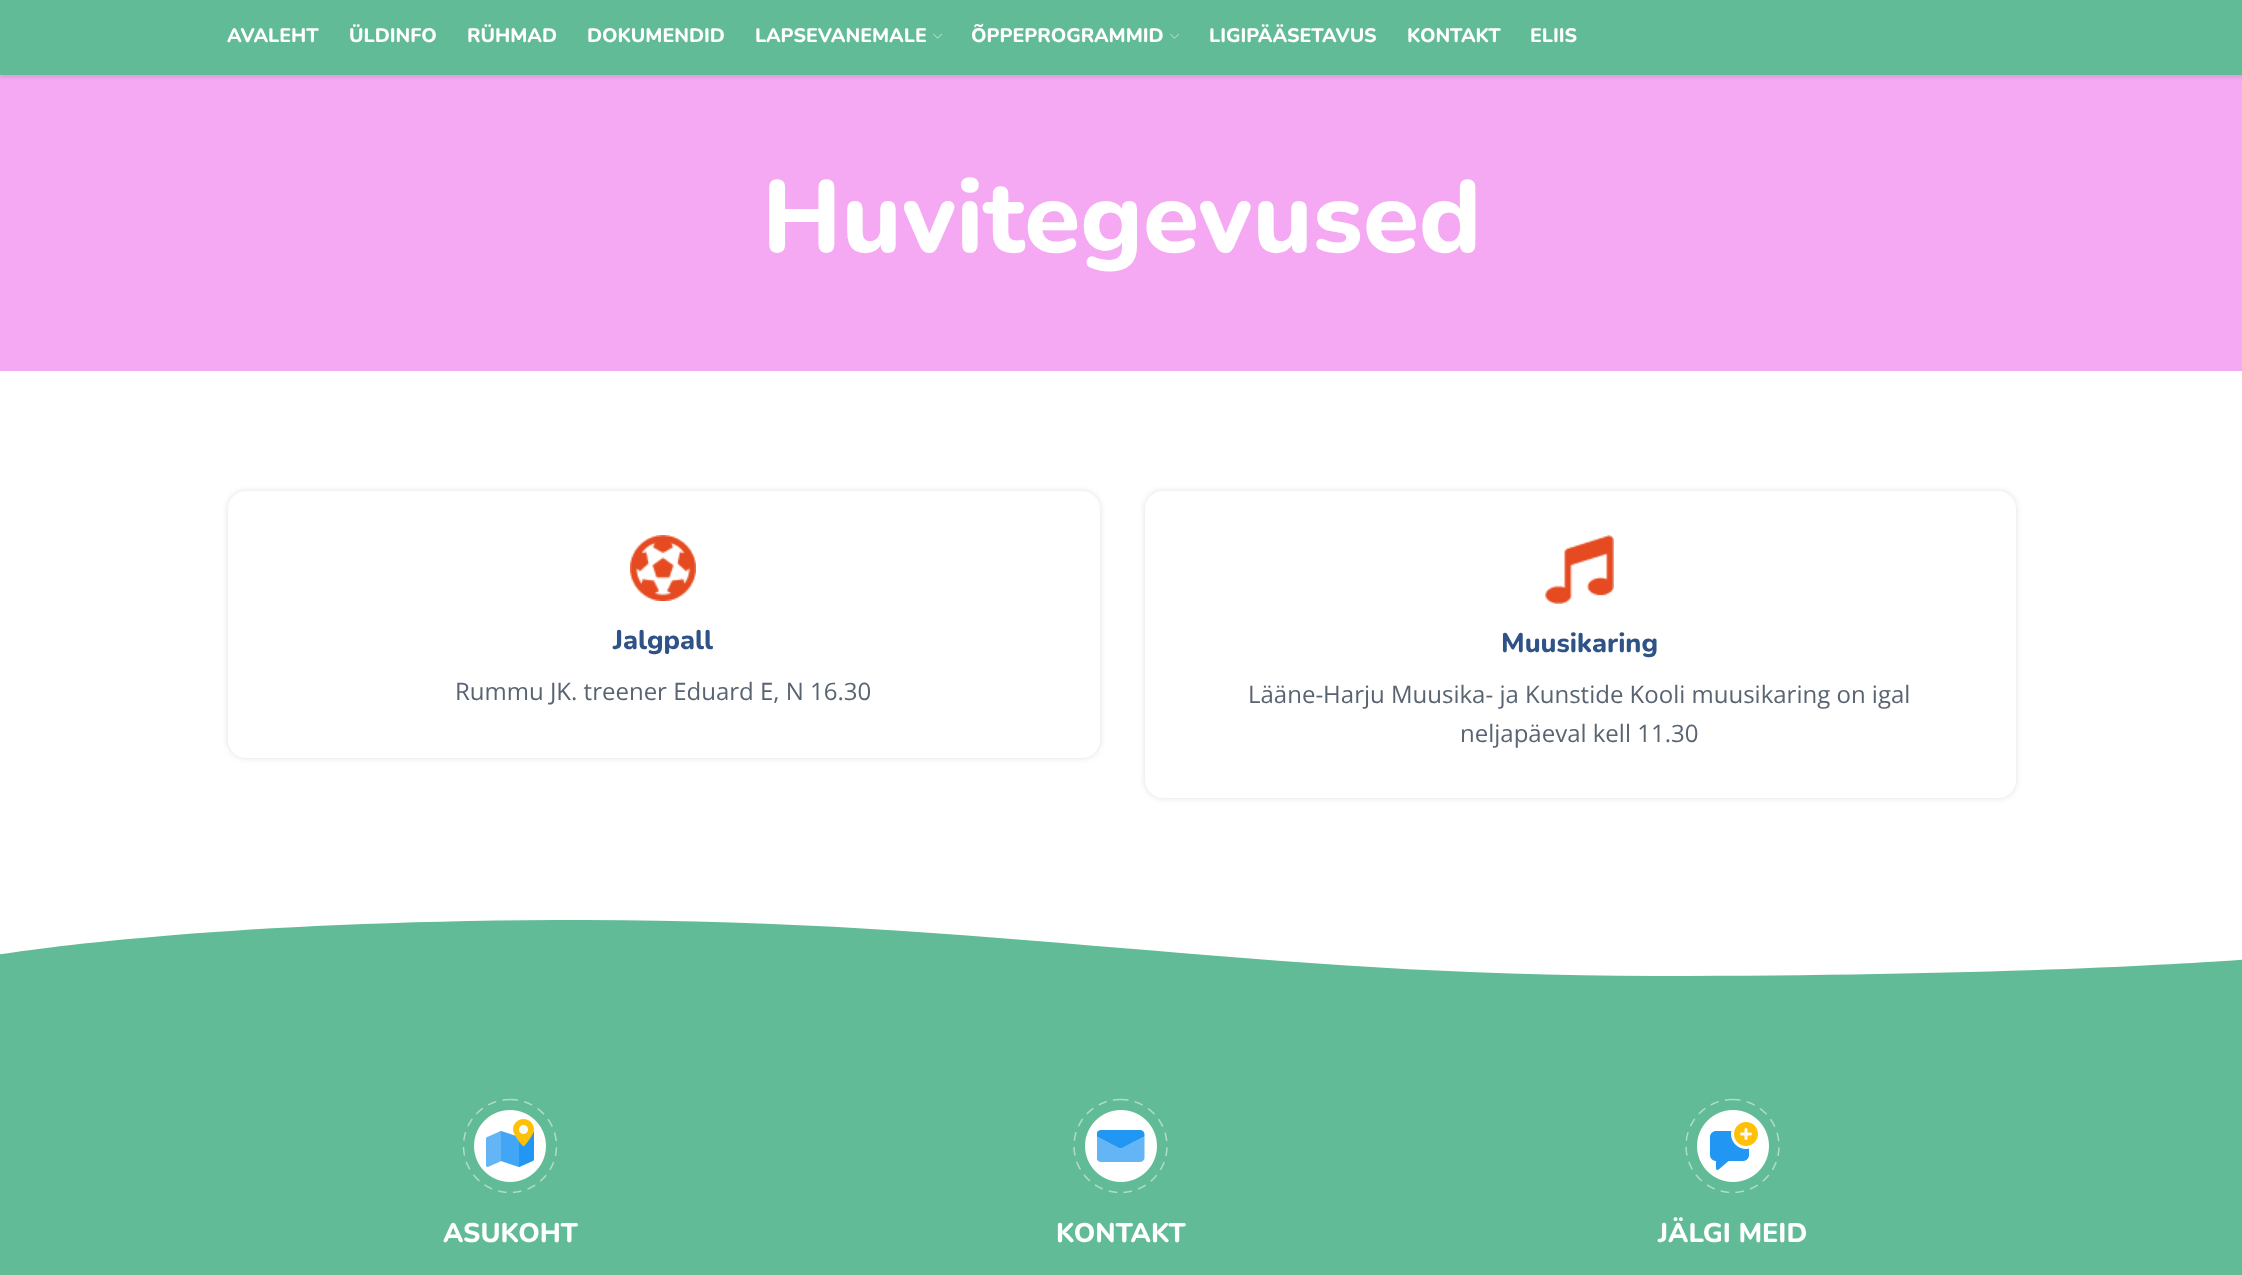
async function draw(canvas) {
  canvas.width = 2242
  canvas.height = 1275
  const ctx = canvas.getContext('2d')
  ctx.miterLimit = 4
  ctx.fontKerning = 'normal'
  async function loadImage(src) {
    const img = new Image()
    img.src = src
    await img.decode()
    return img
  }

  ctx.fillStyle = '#fff'
  ctx.fillRect(0, 0, 2242, 1275)
  ctx.fillStyle = '#f5a9f2'
  ctx.fillRect(0, 75, 2242, 296)
  ctx.fillStyle = '#0000001a'
  ctx.filter = 'blur(2px)'
  ctx.beginPath()
  ctx.rect(0, 2, 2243, 75)
  ctx.fill()
  ctx.filter = 'none'
  ctx.fillStyle = '#61bb97'
  ctx.fillRect(0, 0, 2242, 75)
  ctx.font = '800 19.5px Nunito'
  ctx.fillStyle = '#fff'
  ctx.fillText('AVALEHT', 227, 42)
  ctx.fillText('ÜLDINFO', 349, 42)
  ctx.fillText('RÜHMAD', 467, 42)
  ctx.fillText('DOKUMENDID', 587, 42)
  ctx.fillText('LAPSEVANEMALE', 755, 42)
  ctx.drawImage(await loadImage('image0.png'), 933, 33, 9, 6)
  ctx.fillText('ÕPPEPROGRAMMID', 971, 42)
  ctx.drawImage(await loadImage('image0.png'), 1170, 33, 9, 6)
  ctx.fillText('LIGIPÄÄSETAVUS', 1209, 42)
  ctx.fillText('KONTAKT', 1407, 42)
  ctx.fillText('ELIIS', 1530, 42)
  ctx.font = '800 102px Nunito'
  ctx.fillText('Huvitegevused', 762, 252)
  ctx.fillStyle = '#0000001f'
  ctx.filter = 'blur(3px)'
  ctx.beginPath()
  ctx.roundRect(228, 491, 872, 267, 18)
  ctx.fill()
  ctx.filter = 'none'
  ctx.fillStyle = '#fff'
  ctx.beginPath()
  ctx.roundRect(228, 491, 872, 267, 18)
  ctx.fill()
  ctx.drawImage(await loadImage('image1.png'), 630, 535, 66, 66)
  ctx.font = '800 27px Nunito'
  ctx.fillStyle = '#305387'
  ctx.fillText('Jalgpall', 613, 649)
  ctx.font = '24px Open Sans'
  ctx.fillStyle = '#596472'
  ctx.fillText('Rummu JK. treener Eduard E, N 16.30', 455, 700)
  ctx.fillStyle = '#0000001f'
  ctx.filter = 'blur(3px)'
  ctx.beginPath()
  ctx.roundRect(1145, 491, 871, 307, 18)
  ctx.fill()
  ctx.filter = 'none'
  ctx.fillStyle = '#fff'
  ctx.beginPath()
  ctx.roundRect(1145, 491, 871, 307, 18)
  ctx.fill()
  ctx.drawImage(await loadImage('image2.png'), 1545, 535, 69, 69)
  ctx.font = '800 27px Nunito'
  ctx.fillStyle = '#305387'
  ctx.fillText('Muusikaring', 1501, 652)
  ctx.font = '24px Open Sans'
  ctx.fillStyle = '#596472'
  ctx.fillText('Lääne-Harju Muusika- ja Kunstide Kooli muusikaring on igal', 1248, 703)
  ctx.fillText('neljapäeval kell 11.30', 1460, 742)
  ctx.fillStyle = '#61bb97'
  ctx.fillRect(0, 920, 2242, 355)
  ctx.save()
  ctx.beginPath()
  ctx.rect(0, 903, 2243, 74)
  ctx.clip()
  ctx.fillStyle = '#fff'
  ctx.beginPath()
  ctx.moveTo(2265, 958)
  ctx.bezierCurveTo(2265, 958, 2063, 976, 1657, 976)
  ctx.bezierCurveTo(1252, 976, 991, 920, 585, 920)
  ctx.bezierCurveTo(179, 920, -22, 958, -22, 958)
  ctx.lineTo(-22, 902)
  ctx.lineTo(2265, 902)
  ctx.closePath()
  ctx.fill()
  ctx.restore()
  ctx.drawImage(await loadImage('image3.png'), 462, 1098, 96, 95)
  ctx.font = '800 27px Nunito'
  ctx.fillStyle = '#fff'
  ctx.fillText('ASUKOHT', 443, 1242)
  ctx.drawImage(await loadImage('image4.png'), 1073, 1098, 95, 95)
  ctx.fillText('KONTAKT', 1056, 1242)
  ctx.drawImage(await loadImage('image5.png'), 1685, 1098, 95, 95)
  ctx.fillText('JÄLGI MEID', 1658, 1242)
}

draw(document.querySelector('canvas'))
